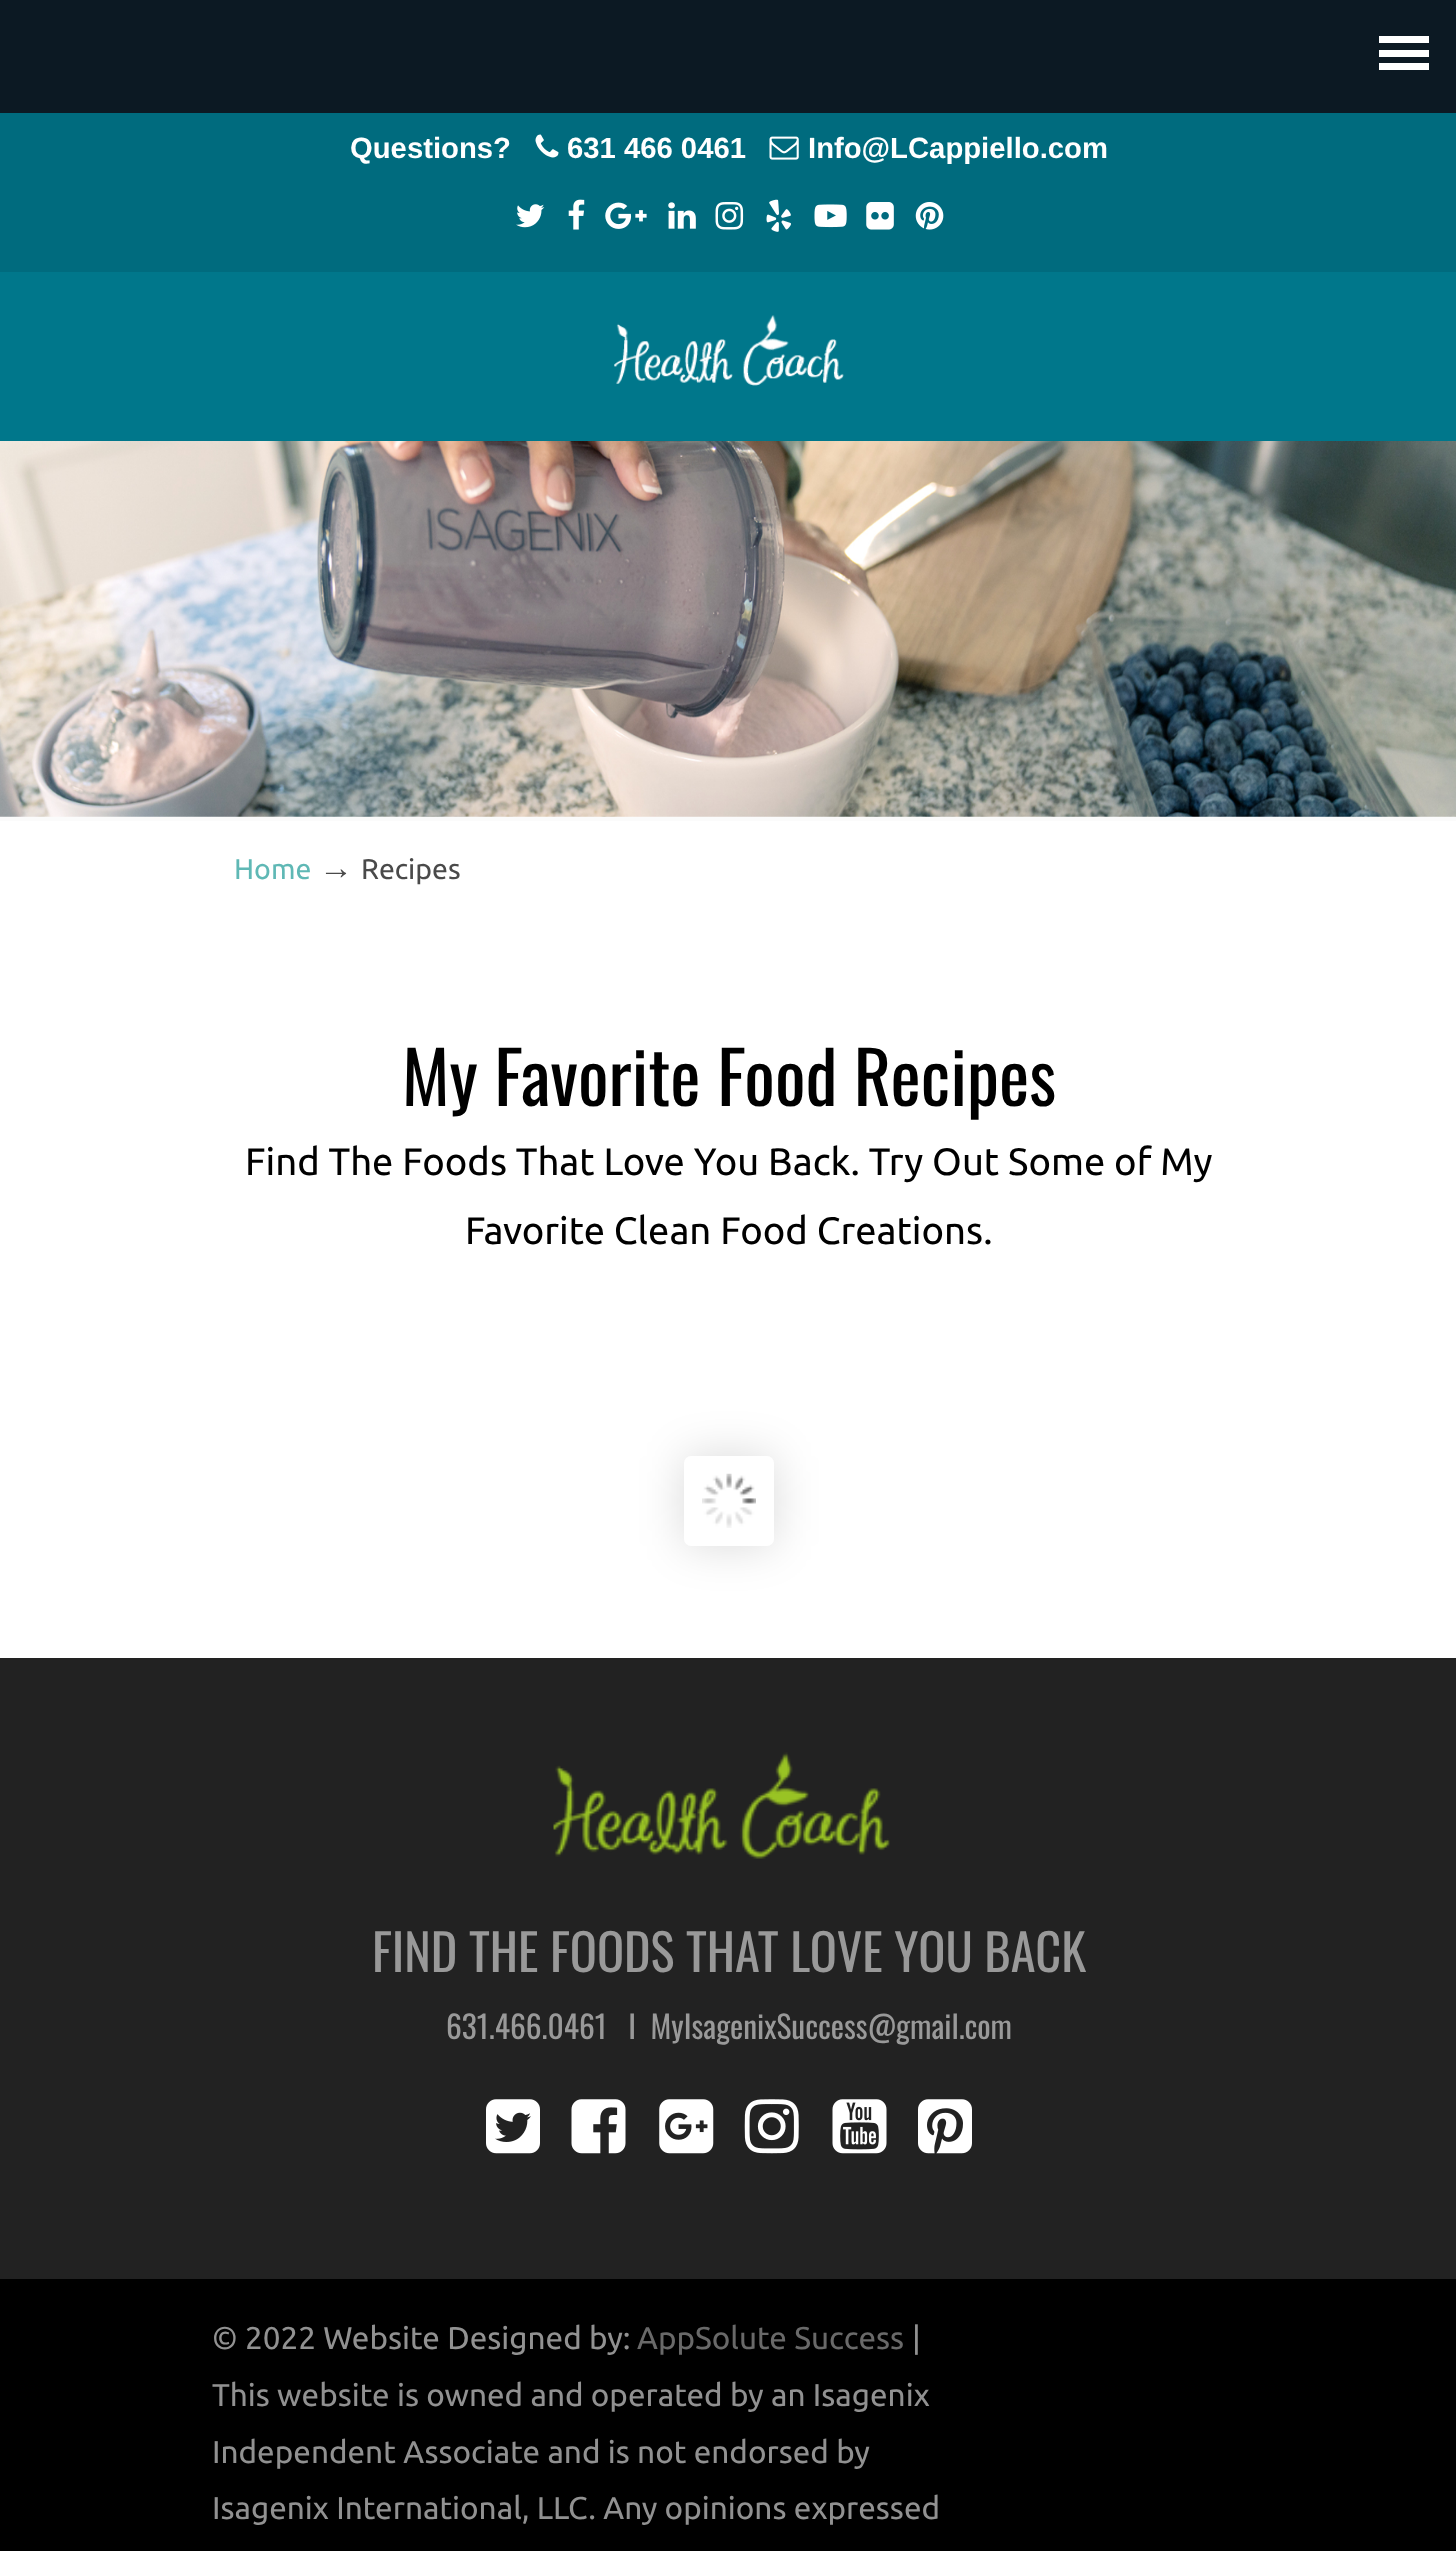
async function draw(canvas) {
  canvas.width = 1456
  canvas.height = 2551
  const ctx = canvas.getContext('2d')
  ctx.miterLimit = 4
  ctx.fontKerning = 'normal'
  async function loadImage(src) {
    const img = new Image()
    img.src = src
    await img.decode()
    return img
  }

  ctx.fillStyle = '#fbfbfb'
  ctx.fillRect(0, 0, 1456, 2551)
  ctx.fillStyle = '#0c1923'
  ctx.fillRect(0, 0, 1456, 113)
  ctx.fillStyle = '#fff'
  ctx.fillRect(1379, 36, 50, 7)
  ctx.fillRect(1379, 50, 50, 7)
  ctx.fillRect(1379, 63, 50, 7)
  ctx.fillStyle = '#00778b'
  ctx.fillRect(0, 272, 1456, 169)
  ctx.fillStyle = '#006b7e'
  ctx.fillRect(0, 113, 1456, 159)
  ctx.font = 'bold 29.25px Liberation Sans'
  ctx.fillStyle = '#fff'
  ctx.fillText('Questions?', 350, 158)
  ctx.drawImage(await loadImage('image0.png'), 535, 134, 24, 24)
  ctx.fillText('631 466 0461', 567, 158)
  ctx.drawImage(await loadImage('image1.png'), 769, 136, 30, 24)
  ctx.fillText('Info@LCappiello.com', 808, 158)
  ctx.drawImage(await loadImage('image2.png'), 516, 204, 29, 24)
  ctx.drawImage(await loadImage('image3.png'), 568, 199, 17, 31)
  ctx.drawImage(await loadImage('image4.png'), 605, 202, 42, 27)
  ctx.drawImage(await loadImage('image5.png'), 668, 202, 28, 27)
  ctx.drawImage(await loadImage('image6.png'), 715, 202, 29, 28)
  ctx.drawImage(await loadImage('image7.png'), 766, 199, 25, 33)
  ctx.drawImage(await loadImage('image8.png'), 814, 204, 33, 24)
  ctx.drawImage(await loadImage('image9.png'), 866, 202, 28, 28)
  ctx.drawImage(await loadImage('image10.png'), 915, 202, 29, 28)
  ctx.drawImage(await loadImage('image11.png'), 614, 315, 230, 71)
  ctx.drawImage(await loadImage('image12.png'), 0, 441, 1456, 376)
  ctx.fillRect(0, 821, 1456, 837)
  ctx.font = '28.5px Ubuntu'
  ctx.fillStyle = '#5fb8b5'
  ctx.fillText('Home', 234, 879)
  ctx.font = '34px Liberation Serif'
  ctx.fillStyle = '#4a4a4a'
  ctx.fillText('→', 319, 879)
  ctx.font = '28.5px Ubuntu'
  ctx.fillText('Recipes', 361, 879)
  ctx.font = '72px Oswald'
  ctx.fillStyle = '#000'
  ctx.fillText('My Favorite Food Recipes', 402, 1106)
  ctx.font = '38.25px Ubuntu'
  ctx.fillText('Find The Foods That Love You Back. Try Out Some of My', 245, 1175)
  ctx.fillText('Favorite Clean Food Creations.', 465, 1244)
  ctx.fillStyle = '#00000026'
  ctx.filter = 'blur(22.5px)'
  ctx.beginPath()
  ctx.roundRect(684, 1456, 90, 90, 7)
  ctx.fill()
  ctx.filter = 'none'
  ctx.fillStyle = '#fff'
  ctx.beginPath()
  ctx.roundRect(684, 1456, 90, 90, 7)
  ctx.fill()
  ctx.drawImage(await loadImage('image13.png'), 702, 1473, 54, 55)
  ctx.fillStyle = '#222'
  ctx.fillRect(0, 1658, 1456, 621)
  ctx.drawImage(await loadImage('image14.png'), 553, 1752, 337, 107)
  ctx.font = '50.4px Oswald'
  ctx.fillStyle = '#999'
  ctx.fillText('FIND THE FOODS THAT LOVE YOU BACK', 372, 1972)
  ctx.font = '31.5px Oswald'
  ctx.fillText('631.466.0461   I  MyIsagenixSuccess@gmail.com', 446, 2039)
  ctx.drawImage(await loadImage('image15.png'), 486, 2099, 54, 55)
  ctx.drawImage(await loadImage('image16.png'), 571, 2099, 55, 55)
  ctx.drawImage(await loadImage('image17.png'), 659, 2099, 55, 55)
  ctx.drawImage(await loadImage('image18.png'), 744, 2099, 55, 55)
  ctx.drawImage(await loadImage('image19.png'), 832, 2099, 55, 55)
  ctx.drawImage(await loadImage('image20.png'), 918, 2099, 54, 55)
  ctx.fillStyle = '#000'
  ctx.fillRect(0, 2279, 1456, 272)
  ctx.font = '31.5px Ubuntu'
  ctx.fillStyle = '#919191'
  ctx.fillText('© 2022 Website Designed by:', 212, 2349)
  ctx.fillStyle = '#696969'
  ctx.fillText('AppSolute Success', 637, 2349)
  ctx.fillStyle = '#919191'
  ctx.fillText('|', 912, 2349)
  ctx.fillText('This website is owned and operated by an Isagenix', 212, 2406)
  ctx.fillText('Independent Associate and is not endorsed by', 212, 2463)
  ctx.fillText('Isagenix International, LLC. Any opinions expressed', 212, 2519)
}

draw(document.querySelector('canvas'))
